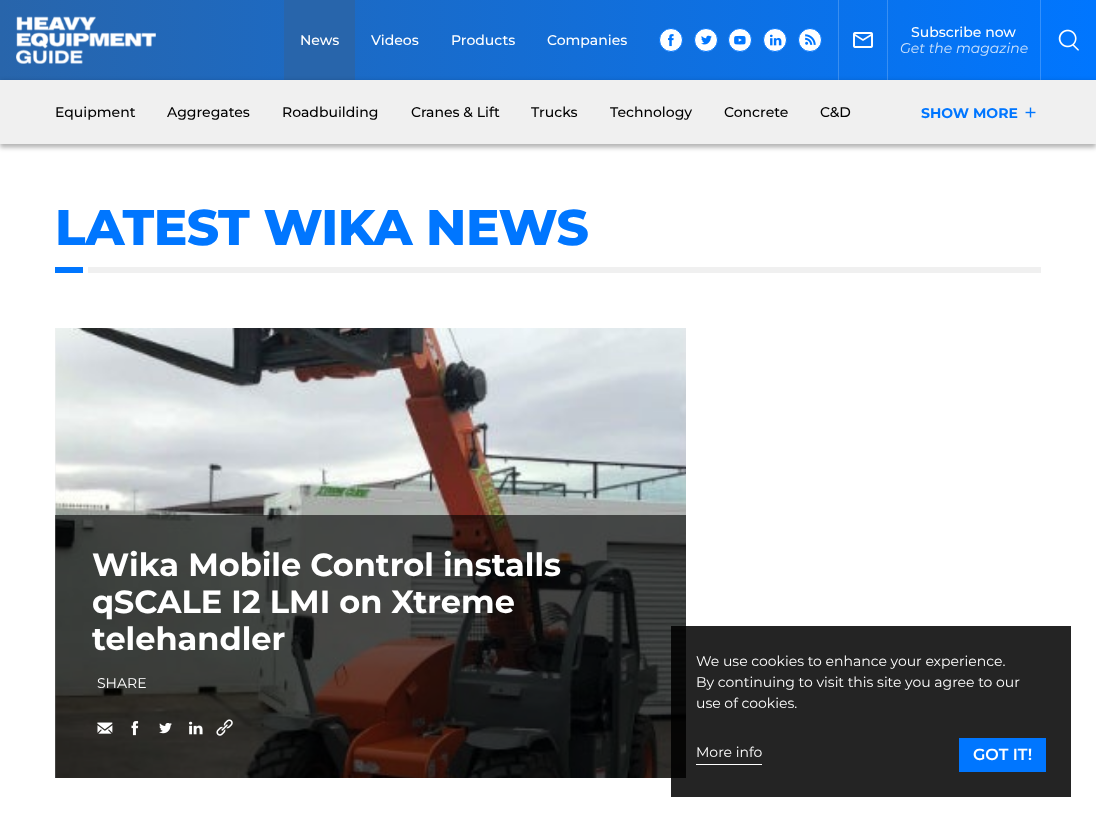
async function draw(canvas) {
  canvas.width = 1096
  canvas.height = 822
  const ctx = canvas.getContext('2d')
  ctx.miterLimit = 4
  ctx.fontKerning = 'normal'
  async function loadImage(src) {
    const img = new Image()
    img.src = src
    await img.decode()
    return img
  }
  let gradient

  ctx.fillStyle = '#fff'
  ctx.fillRect(0, 0, 1096, 822)
  gradient = ctx.createLinearGradient(0, 40, 1096, 40)
  gradient.addColorStop(0, '#2865ab')
  gradient.addColorStop(1, '#0076ff')
  ctx.fillStyle = gradient
  ctx.fillRect(0, 0, 1096, 80)
  ctx.drawImage(await loadImage('image0.png'), 16, 16, 140, 48)
  ctx.fillStyle = '#3a8eef'
  ctx.fillRect(838, 0, 1, 80)
  ctx.drawImage(await loadImage('image1.png'), 853, 32, 20, 16)
  ctx.fillStyle = '#398ff2'
  ctx.fillRect(887, 0, 1, 80)
  ctx.font = '500 14px Montserrat'
  ctx.fillStyle = '#fff'
  ctx.fillText('Subscribe now', 911, 37)
  ctx.font = 'italic 100 14px Montserrat'
  ctx.fillStyle = '#cde3fd'
  ctx.fillText('Get the magazine', 900, 53)
  ctx.fillStyle = '#3591fc'
  ctx.fillRect(1040, 0, 1, 80)
  ctx.drawImage(await loadImage('image2.png'), 1058, 29, 21, 22)
  ctx.font = '500 14px Montserrat'
  ctx.fillStyle = '#fff'
  ctx.fillText('Videos', 371, 45)
  ctx.fillText('Products', 451, 45)
  ctx.fillText('Companies', 547, 45)
  ctx.beginPath()
  ctx.arc(671, 40, 11.5, 0, 2 * Math.PI)
  ctx.fill()
  ctx.strokeStyle = '#0076ff'
  ctx.stroke()
  ctx.drawImage(await loadImage('image3.png'), 668, 34, 6, 13)
  ctx.beginPath()
  ctx.arc(706, 40, 11.5, 0, 2 * Math.PI)
  ctx.fill()
  ctx.stroke()
  ctx.drawImage(await loadImage('image4.png'), 701, 35, 11, 10)
  ctx.beginPath()
  ctx.arc(740, 40, 11.5, 0, 2 * Math.PI)
  ctx.fill()
  ctx.stroke()
  ctx.drawImage(await loadImage('image5.png'), 734, 35, 12, 10)
  ctx.beginPath()
  ctx.arc(775, 40, 11.5, 0, 2 * Math.PI)
  ctx.fill()
  ctx.stroke()
  ctx.drawImage(await loadImage('image6.png'), 769, 34, 13, 12)
  ctx.beginPath()
  ctx.arc(810, 40, 11.5, 0, 2 * Math.PI)
  ctx.fill()
  ctx.stroke()
  ctx.drawImage(await loadImage('image7.png'), 805, 34, 11, 11)
  ctx.fillStyle = '#2865ab'
  ctx.fillRect(284, 0, 71, 80)
  ctx.fillStyle = '#fff'
  ctx.fillText('News', 300, 45)
  ctx.fillStyle = '#0000001f'
  ctx.filter = 'blur(2px)'
  ctx.beginPath()
  ctx.rect(0, 80, 1096, 64)
  ctx.fill()
  ctx.filter = 'none'
  ctx.fillStyle = '#0000003d'
  ctx.filter = 'blur(2px)'
  ctx.beginPath()
  ctx.rect(0, 84, 1096, 64)
  ctx.fill()
  ctx.filter = 'none'
  ctx.fillStyle = '#f0f0f0'
  ctx.fillRect(0, 80, 1096, 64)
  ctx.fillStyle = '#000'
  ctx.fillText('Equipment', 55, 117)
  ctx.fillText('Aggregates', 167, 117)
  ctx.fillText('Roadbuilding', 282, 117)
  ctx.fillText('Cranes & Lift', 411, 117)
  ctx.fillText('Trucks', 531, 117)
  ctx.fillText('Technology', 610, 117)
  ctx.fillText('Concrete', 724, 117)
  ctx.fillText('C&D', 820, 117)
  ctx.font = 'bold 14px Montserrat'
  ctx.fillStyle = '#0076ff'
  ctx.fillText('SHOW MORE', 921, 118)
  ctx.drawImage(await loadImage('image8.png'), 1025, 107, 11, 11)
  ctx.letterSpacing = '-0.5px'
  ctx.font = '800 50px Montserrat'
  ctx.fillText('LATEST WIKA NEWS', 55, 245)
  ctx.fillRect(55, 267, 28, 6)
  ctx.fillStyle = '#f0f0f0'
  ctx.fillRect(88, 267, 953, 6)
  ctx.fillRect(55, 328, 1, 450)
  ctx.drawImage(await loadImage('image9.png'), 55, 328, 631, 450)
  ctx.fillStyle = '#00000099'
  ctx.fillRect(55, 515, 631, 263)
  ctx.letterSpacing = '0px'
  ctx.font = 'bold 32px Montserrat'
  ctx.fillStyle = '#fff'
  ctx.fillText('Wika Mobile Control installs', 92, 576)
  ctx.fillText('qSCALE I2 LMI on Xtreme', 92, 613)
  ctx.fillText('telehandler', 92, 650)
  ctx.font = '14px Montserrat'
  ctx.fillText('SHARE', 97, 688)
  ctx.drawImage(await loadImage('image10.png'), 97, 722, 16, 12)
  ctx.drawImage(await loadImage('image11.png'), 131, 721, 8, 15)
  ctx.drawImage(await loadImage('image12.png'), 159, 723, 13, 11)
  ctx.drawImage(await loadImage('image13.png'), 189, 721, 14, 14)
  ctx.drawImage(await loadImage('image14.png'), 216, 719, 17, 17)
  ctx.fillStyle = '#000000db'
  ctx.fillRect(671, 626, 400, 171)
  ctx.fillStyle = '#fff'
  ctx.fillText('We use cookies to enhance your experience.', 696, 666)
  ctx.fillText('By continuing to visit this site you agree to our', 696, 687)
  ctx.fillText('use of cookies.', 696, 708)
  ctx.fillText('More info', 696, 757)
  ctx.fillRect(696, 764, 66, 1)
  ctx.fillStyle = '#0076ff'
  ctx.fillRect(959, 738, 87, 34)
  ctx.font = '600 16px Montserrat'
  ctx.fillStyle = '#fff'
  ctx.fillText('GOT IT!', 973, 760)
}

draw(document.querySelector('canvas'))
